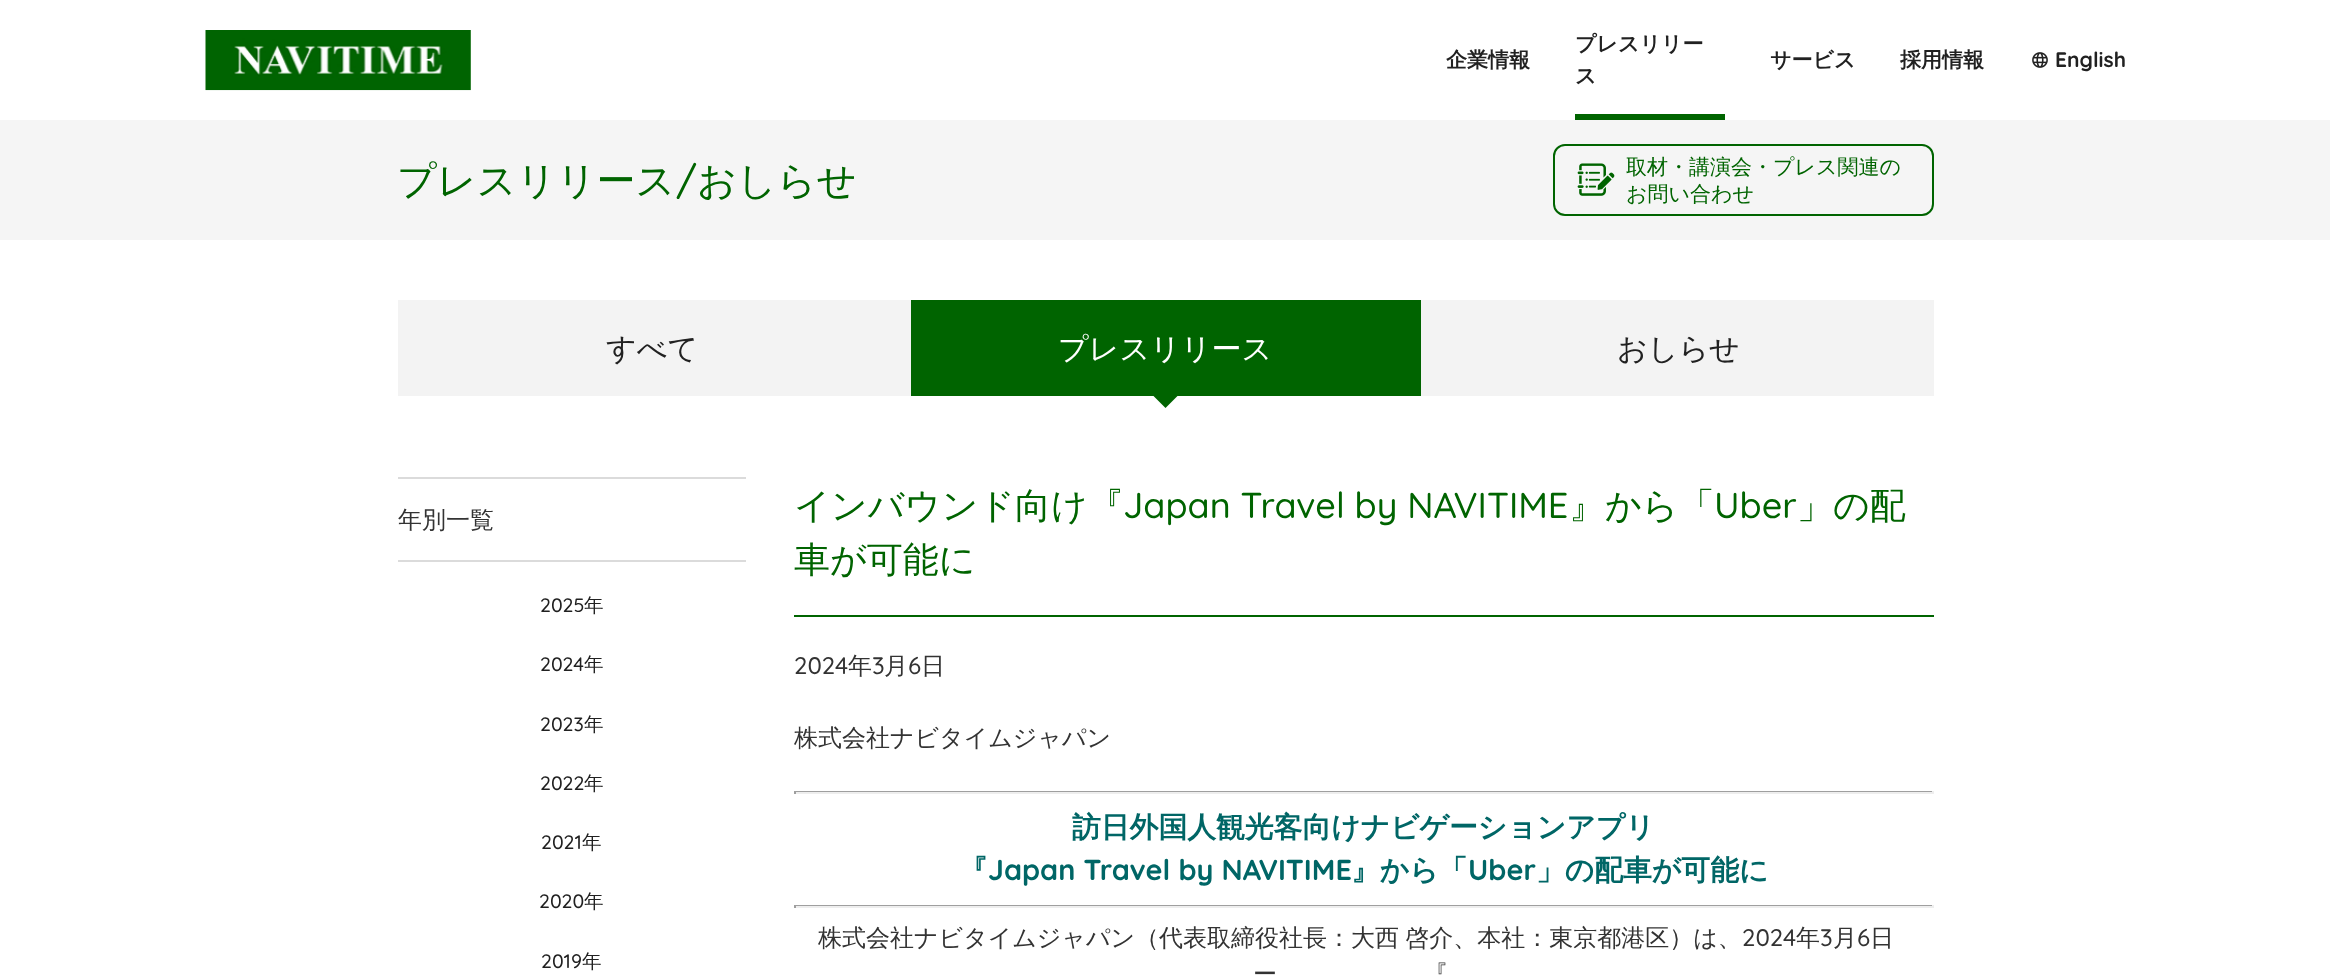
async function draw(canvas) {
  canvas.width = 2330
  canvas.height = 976
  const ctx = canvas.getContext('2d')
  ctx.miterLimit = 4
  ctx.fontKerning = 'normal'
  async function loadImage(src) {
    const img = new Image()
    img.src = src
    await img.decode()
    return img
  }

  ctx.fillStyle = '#fff'
  ctx.fillRect(0, 0, 2330, 976)
  ctx.drawImage(await loadImage('image0.png'), 205, 30, 266, 61)
  ctx.font = 'bold 21px WenQuanYi Zen Hei'
  ctx.fillStyle = '#212121'
  ctx.fillText('企業情報', 1446, 67)
  ctx.fillText('プレスリリー', 1575, 51)
  ctx.fillText('ス', 1575, 83)
  ctx.fillStyle = '#006400'
  ctx.fillRect(1575, 114, 150, 6)
  ctx.fillStyle = '#212121'
  ctx.fillText('サービス', 1770, 67)
  ctx.fillText('採用情報', 1900, 67)
  ctx.drawImage(await loadImage('image1.png'), 2032, 52, 16, 16)
  ctx.font = 'bold 21px Quicksand'
  ctx.fillText('English', 2055, 67)
  ctx.fillStyle = '#f5f5f5'
  ctx.fillRect(0, 120, 2330, 120)
  ctx.beginPath()
  ctx.roundRect(1554, 145, 379, 70, 11)
  ctx.strokeStyle = '#006400'
  ctx.lineWidth = 2
  ctx.stroke()
  ctx.drawImage(await loadImage('image2.png'), 1577, 163, 38, 33)
  ctx.font = '500 21px WenQuanYi Zen Hei'
  ctx.fillStyle = '#006400'
  ctx.fillText('取材・講演会・プレス関連の', 1626, 174)
  ctx.fillText('お問い合わせ', 1626, 201)
  ctx.fillStyle = '#f3f3f3'
  ctx.fillRect(398, 300, 1536, 96)
  ctx.font = '500 30px WenQuanYi Zen Hei'
  ctx.fillStyle = '#212121'
  ctx.fillText('すべて', 606, 359)
  ctx.fillStyle = '#006400'
  ctx.fillRect(911, 300, 510, 96)
  ctx.fillStyle = '#fff'
  ctx.fillText('プレスリリース', 1058, 359)
  ctx.fillStyle = '#006400'
  ctx.beginPath()
  ctx.moveTo(1153.5, 396)
  ctx.lineTo(1177.5, 396)
  ctx.lineTo(1165.5, 408)
  ctx.closePath()
  ctx.fill()
  ctx.fillStyle = '#212121'
  ctx.fillText('おしらせ', 1617, 359)
  ctx.fillStyle = '#dbdbdb'
  ctx.fillRect(398, 477, 348, 2)
  ctx.fillRect(398, 560, 348, 2)
  ctx.font = '500 24px WenQuanYi Zen Hei'
  ctx.fillStyle = '#333'
  ctx.fillText('年別一覧', 398, 528)
  ctx.font = '500 19.5px Quicksand'
  ctx.fillStyle = '#212121'
  ctx.fillText('2025', 540, 612)
  ctx.font = '500 19.5px WenQuanYi Zen Hei'
  ctx.fillText('年', 584, 612)
  ctx.font = '500 19.5px Quicksand'
  ctx.fillText('2024', 540, 671)
  ctx.font = '500 19.5px WenQuanYi Zen Hei'
  ctx.fillText('年', 584, 671)
  ctx.font = '500 19.5px Quicksand'
  ctx.fillText('2023', 540, 731)
  ctx.font = '500 19.5px WenQuanYi Zen Hei'
  ctx.fillText('年', 584, 731)
  ctx.font = '500 19.5px Quicksand'
  ctx.fillText('2022', 540, 790)
  ctx.font = '500 19.5px WenQuanYi Zen Hei'
  ctx.fillText('年', 584, 790)
  ctx.font = '500 19.5px Quicksand'
  ctx.fillText('2021', 541, 849)
  ctx.font = '500 19.5px WenQuanYi Zen Hei'
  ctx.fillText('年', 582, 849)
  ctx.font = '500 19.5px Quicksand'
  ctx.fillText('2020', 539, 908)
  ctx.font = '500 19.5px WenQuanYi Zen Hei'
  ctx.fillText('年', 584, 908)
  ctx.font = '500 19.5px Quicksand'
  ctx.fillText('2019', 541, 968)
  ctx.font = '500 19.5px WenQuanYi Zen Hei'
  ctx.fillText('年', 582, 968)
  ctx.fillStyle = '#006400'
  ctx.fillRect(794, 615, 1140, 2)
  ctx.font = '500 36px WenQuanYi Zen Hei'
  ctx.fillText('インバウンド向け『', 794, 518)
  ctx.font = '500 36px Quicksand'
  ctx.fillText('Japan Travel by NAVITIME', 1123, 518)
  ctx.font = '500 36px WenQuanYi Zen Hei'
  ctx.fillText('』から「', 1569, 518)
  ctx.font = '500 36px Quicksand'
  ctx.fillText('Uber', 1714, 518)
  ctx.font = '500 36px WenQuanYi Zen Hei'
  ctx.fillText('」の配', 1797, 518)
  ctx.fillText('車が可能に', 794, 572)
  ctx.font = '500 24px Quicksand'
  ctx.fillStyle = '#333'
  ctx.fillText('2024', 794, 674)
  ctx.font = '500 24px WenQuanYi Zen Hei'
  ctx.fillText('年', 848, 674)
  ctx.font = '500 24px Quicksand'
  ctx.fillText('3', 872, 674)
  ctx.font = '500 24px WenQuanYi Zen Hei'
  ctx.fillText('月', 884, 674)
  ctx.font = '500 24px Quicksand'
  ctx.fillText('6', 908, 674)
  ctx.font = '500 24px WenQuanYi Zen Hei'
  ctx.fillText('日', 921, 674)
  ctx.fillText('株式会社ナビタイムジャパン', 794, 746)
  ctx.fillStyle = '#9f9f9f'
  ctx.fillRect(794, 791, 1140, 1)
  ctx.fillStyle = '#eee'
  ctx.fillRect(1932, 791, 2, 3)
  ctx.fillRect(794, 792, 1140, 2)
  ctx.fillStyle = '#9f9f9f'
  ctx.fillRect(794, 791, 2, 3)
  ctx.font = 'bold 28.8px WenQuanYi Zen Hei'
  ctx.fillStyle = '#066'
  ctx.fillText('訪日外国人観光客向けナビゲーションアプリ', 1072, 837)
  ctx.fillText('『', 959, 880)
  ctx.font = 'bold 28.8px Quicksand'
  ctx.fillText('Japan Travel by NAVITIME', 988, 880)
  ctx.font = 'bold 28.8px WenQuanYi Zen Hei'
  ctx.fillText('』から「', 1351, 880)
  ctx.font = 'bold 28.8px Quicksand'
  ctx.fillText('Uber', 1468, 880)
  ctx.font = 'bold 28.8px WenQuanYi Zen Hei'
  ctx.fillText('」の配車が可能に', 1536, 880)
  ctx.fillStyle = '#9f9f9f'
  ctx.fillRect(794, 905, 1140, 1)
  ctx.fillStyle = '#eee'
  ctx.fillRect(1932, 905, 2, 3)
  ctx.fillRect(794, 906, 1140, 2)
  ctx.fillStyle = '#9f9f9f'
  ctx.fillRect(794, 905, 2, 3)
  ctx.wordSpacing = '-1px'
  ctx.font = '500 24px WenQuanYi Zen Hei'
  ctx.fillStyle = '#333'
  ctx.fillText('株式会社ナビタイムジャパン（代表取締役社長：大西 啓介、本社：東京都港区）は、', 818, 946)
  ctx.wordSpacing = '0px'
  ctx.font = '500 24px Quicksand'
  ctx.fillText('2024', 1742, 946)
  ctx.font = '500 24px WenQuanYi Zen Hei'
  ctx.fillText('年', 1796, 946)
  ctx.font = '500 24px Quicksand'
  ctx.fillText('3', 1820, 946)
  ctx.font = '500 24px WenQuanYi Zen Hei'
  ctx.fillText('月', 1833, 946)
  ctx.font = '500 24px Quicksand'
  ctx.fillText('6', 1857, 946)
  ctx.font = '500 24px WenQuanYi Zen Hei'
  ctx.fillText('日', 1870, 946)
  ctx.fillText('ー', 1253, 982)
  ctx.fillText('『', 1424, 982)
  ctx.font = '500 39px WenQuanYi Zen Hei'
  ctx.fillStyle = '#006400'
  ctx.fillText('プレスリリース', 397, 194)
  ctx.font = '500 39px Quicksand'
  ctx.fillText('/', 676, 194)
  ctx.font = '500 39px WenQuanYi Zen Hei'
  ctx.fillText('おしらせ', 697, 194)
}

draw(document.querySelector('canvas'))
